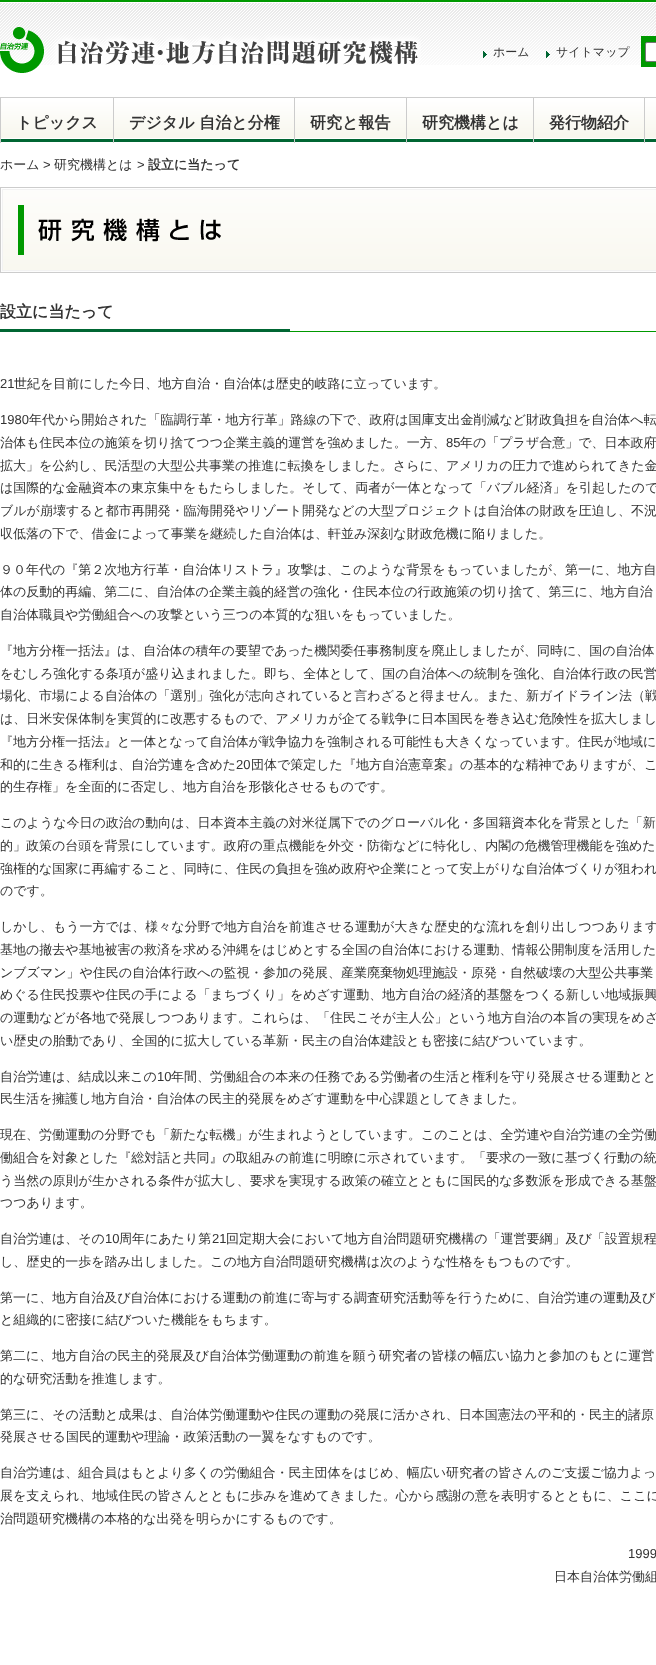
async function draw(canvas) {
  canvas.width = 656
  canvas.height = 1665
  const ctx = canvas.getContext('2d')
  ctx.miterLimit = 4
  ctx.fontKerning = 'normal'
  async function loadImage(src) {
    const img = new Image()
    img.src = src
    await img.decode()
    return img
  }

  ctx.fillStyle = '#fff'
  ctx.fillRect(0, 0, 656, 1665)
  ctx.drawImage(await loadImage('image0.png'), 0, 0, 656, 65)
  ctx.drawImage(await loadImage('image1.png'), 0, 27, 421, 46)
  ctx.drawImage(await loadImage('image2.png'), 483, 51, 4, 7)
  ctx.font = '500 12px WenQuanYi Zen Hei'
  ctx.fillStyle = '#333'
  ctx.fillText('ホーム', 493, 56)
  ctx.drawImage(await loadImage('image2.png'), 546, 51, 4, 7)
  ctx.fillText('サイトマップ', 556, 56)
  ctx.fillStyle = '#090'
  ctx.fillRect(641, 36, 15, 31)
  ctx.fillStyle = '#fff'
  ctx.beginPath()
  ctx.roundRect(645.5, 42.5, 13, 19, 1.5)
  ctx.fill()
  ctx.strokeStyle = '#767676'
  ctx.stroke()
  ctx.drawImage(await loadImage('image3.png'), 0, 97, 656, 45)
  ctx.fillStyle = '#ccc'
  ctx.fillRect(0, 98, 1, 45)
  ctx.font = 'bold 16px WenQuanYi Zen Hei'
  ctx.fillStyle = '#333'
  ctx.fillText('トピックス', 16, 128)
  ctx.fillStyle = '#ccc'
  ctx.fillRect(113, 98, 1, 45)
  ctx.fillStyle = '#333'
  ctx.fillText('デジタル 自治と分権', 129, 128)
  ctx.fillStyle = '#ccc'
  ctx.fillRect(294, 98, 1, 45)
  ctx.fillStyle = '#333'
  ctx.fillText('研究と報告', 310, 128)
  ctx.fillStyle = '#ccc'
  ctx.fillRect(406, 98, 1, 45)
  ctx.fillStyle = '#333'
  ctx.fillText('研究機構とは', 422, 128)
  ctx.fillStyle = '#ccc'
  ctx.fillRect(533, 98, 1, 45)
  ctx.fillStyle = '#333'
  ctx.fillText('発行物紹介', 549, 128)
  ctx.fillStyle = '#ccc'
  ctx.fillRect(644, 98, 1, 45)
  ctx.font = '500 13px WenQuanYi Zen Hei'
  ctx.fillStyle = '#333'
  ctx.fillText('ホーム', 0, 169)
  ctx.font = '13px Liberation Sans'
  ctx.fillText('>', 43, 169)
  ctx.font = '500 13px WenQuanYi Zen Hei'
  ctx.fillText('研究機構とは', 54, 169)
  ctx.font = '13px Liberation Sans'
  ctx.fillText('>', 137, 169)
  ctx.font = 'bold 13px WenQuanYi Zen Hei'
  ctx.fillText('設立に当たって', 148, 169)
  ctx.drawImage(await loadImage('image4.png'), 0, 187, 656, 86)
  ctx.drawImage(await loadImage('image5.png'), 0, 329, 656, 3)
  ctx.font = 'bold 16px WenQuanYi Zen Hei'
  ctx.fillText('設立に当たって', 0, 317)
  ctx.font = '13px Liberation Sans'
  ctx.fillText('21', 0, 388)
  ctx.font = '500 13px WenQuanYi Zen Hei'
  ctx.fillText('世紀を目前にした今日、地方自治・自治体は歴史的岐路に立っています。', 14, 388)
  ctx.font = '13px Liberation Sans'
  ctx.fillText('1980', 0, 424)
  ctx.font = '500 13px WenQuanYi Zen Hei'
  ctx.fillText('年代から開始された「臨調行革・地方行革」路線の下で、政府は国庫支出金削減など財政負担を自治体へ転', 29, 424)
  ctx.fillText('治体も住民本位の施策を切り捨てつつ企業主義的運営を強めました。一方、', 0, 447)
  ctx.font = '13px Liberation Sans'
  ctx.fillText('85', 446, 447)
  ctx.font = '500 13px WenQuanYi Zen Hei'
  ctx.fillText('年の「プラザ合意」で、日本政府', 460, 447)
  ctx.fillText('拡大」を公約し、民活型の大型公共事業の推進に転換をしました。さらに、アメリカの圧力で進められてきた金', 0, 470)
  ctx.fillText('は国際的な金融資本の東京集中をもたらしました。そして、両者が一体となって「バブル経済」を引起したので', 0, 492)
  ctx.fillText('ブルが崩壊すると都市再開発・臨海開発やリゾート開発などの大型プロジェクトは自治体の財政を圧迫し、不況', 0, 515)
  ctx.fillText('収低落の下で、借金によって事業を継続した自治体は、軒並み深刻な財政危機に陥りました。', 0, 538)
  ctx.fillText('９０年代の『第２次地方行革・自治体リストラ』攻撃は、このような背景をもっていましたが、第一に、地方自', 0, 574)
  ctx.fillText('体の反動的再編、第二に、自治体の企業主義的経営の強化・住民本位の行政施策の切り捨て、第三に、地方自治', 0, 596)
  ctx.fillText('自治体職員や労働組合への攻撃という三つの本質的な狙いをもっていました。', 0, 619)
  ctx.fillText('『地方分権一括法』は、自治体の積年の要望であった機関委任事務制度を廃止しましたが、同時に、国の自治体', 0, 655)
  ctx.fillText('をむしろ強化する条項が盛り込まれました。即ち、全体として、国の自治体への統制を強化、自治体行政の民営', 0, 678)
  ctx.fillText('場化、市場による自治体の「選別」強化が志向されていると言わざると得ません。また、新ガイドライン法（戦', 0, 700)
  ctx.fillText('は、日米安保体制を実質的に改悪するもので、アメリカが企てる戦争に日本国民を巻き込む危険性を拡大しまし', 0, 723)
  ctx.fillText('『地方分権一括法』と一体となって自治体が戦争協力を強制される可能性も大きくなっています。住民が地域に', 0, 746)
  ctx.fillText('和的に生きる権利は、自治労連を含めた', 0, 769)
  ctx.font = '13px Liberation Sans'
  ctx.fillText('20', 236, 769)
  ctx.font = '500 13px WenQuanYi Zen Hei'
  ctx.fillText('団体で策定した『地方自治憲章案』の基本的な精神でありますが、こ', 251, 769)
  ctx.fillText('的生存権」を全面的に否定し、地方自治を形骸化させるものです。', 0, 791)
  ctx.fillText('このような今日の政治の動向は、日本資本主義の対米従属下でのグローバル化・多国籍資本化を背景とした「新', 0, 827)
  ctx.fillText('的」政策の台頭を背景にしています。政府の重点機能を外交・防衛などに特化し、内閣の危機管理機能を強めた', 0, 850)
  ctx.fillText('強権的な国家に再編すること、同時に、住民の負担を強め政府や企業にとって安上がりな自治体づくりが狙われ', 0, 873)
  ctx.fillText('のです。', 0, 895)
  ctx.fillText('しかし、もう一方では、様々な分野で地方自治を前進させる運動が大きな歴史的な流れを創り出しつつあります', 0, 931)
  ctx.fillText('基地の撤去や基地被害の救済を求める沖縄をはじめとする全国の自治体における運動、情報公開制度を活用した', 0, 954)
  ctx.fillText('ンブズマン」や住民の自治体行政への監視・参加の発展、産業廃棄物処理施設・原発・自然破壊の大型公共事業', 0, 977)
  ctx.fillText('めぐる住民投票や住民の手による「まちづくり」をめざす運動、地方自治の経済的基盤をつくる新しい地域振興', 0, 999)
  ctx.fillText('の運動などが各地で発展しつつあります。これらは、「住民こそが主人公」という地方自治の本旨の実現をめざ', 0, 1022)
  ctx.fillText('い歴史の胎動であり、全国的に拡大している革新・民主の自治体建設とも密接に結びついています。', 0, 1045)
  ctx.fillText('自治労連は、結成以来この', 0, 1081)
  ctx.font = '13px Liberation Sans'
  ctx.fillText('10', 157, 1081)
  ctx.font = '500 13px WenQuanYi Zen Hei'
  ctx.fillText('年間、労働組合の本来の任務である労働者の生活と権利を守り発展させる運動とと', 171, 1081)
  ctx.fillText('民生活を擁護し地方自治・自治体の民主的発展をめざす運動を中心課題としてきました。', 0, 1103)
  ctx.fillText('現在、労働運動の分野でも「新たな転機」が生まれようとしています。このことは、全労連や自治労連の全労働', 0, 1139)
  ctx.fillText('働組合を対象とした『総対話と共同』の取組みの前進に明瞭に示されています。「要求の一致に基づく行動の統', 0, 1162)
  ctx.fillText('う当然の原則が生かされる条件が拡大し、要求を実現する政策の確立とともに国民的な多数派を形成できる基盤', 0, 1185)
  ctx.fillText('つつあります。', 0, 1207)
  ctx.fillText('自治労連は、その', 0, 1243)
  ctx.font = '13px Liberation Sans'
  ctx.fillText('10', 105, 1243)
  ctx.font = '500 13px WenQuanYi Zen Hei'
  ctx.fillText('周年にあたり第', 119, 1243)
  ctx.font = '13px Liberation Sans'
  ctx.fillText('21', 212, 1243)
  ctx.font = '500 13px WenQuanYi Zen Hei'
  ctx.fillText('回定期大会において地方自治問題研究機構の「運営要綱」及び「設置規程', 226, 1243)
  ctx.fillText('し、歴史的一歩を踏み出しました。この地方自治問題研究機構は次のような性格をもつものです。', 0, 1266)
  ctx.fillText('第一に、地方自治及び自治体における運動の前進に寄与する調査研究活動等を行うために、自治労連の運動及び', 0, 1302)
  ctx.fillText('と組織的に密接に結びついた機能をもちます。', 0, 1324)
  ctx.fillText('第二に、地方自治の民主的発展及び自治体労働運動の前進を願う研究者の皆様の幅広い協力と参加のもとに運営', 0, 1360)
  ctx.fillText('的な研究活動を推進します。', 0, 1383)
  ctx.fillText('第三に、その活動と成果は、自治体労働運動や住民の運動の発展に活かされ、日本国憲法の平和的・民主的諸原', 0, 1419)
  ctx.fillText('発展させる国民的運動や理論・政策活動の一翼をなすものです。', 0, 1441)
  ctx.fillText('自治労連は、組合員はもとより多くの労働組合・民主団体をはじめ、幅広い研究者の皆さんのご支援ご協力よっ', 0, 1477)
  ctx.fillText('展を支えられ、地域住民の皆さんとともに歩みを進めてきました。心から感謝の意を表明するとともに、ここに', 0, 1500)
  ctx.fillText('治問題研究機構の本格的な出発を明らかにするものです。', 0, 1523)
  ctx.font = '13px Liberation Sans'
  ctx.fillText('1999', 628, 1558)
  ctx.font = '500 13px WenQuanYi Zen Hei'
  ctx.fillText('日本自治体労働組', 554, 1581)
}

draw(document.querySelector('canvas'))
